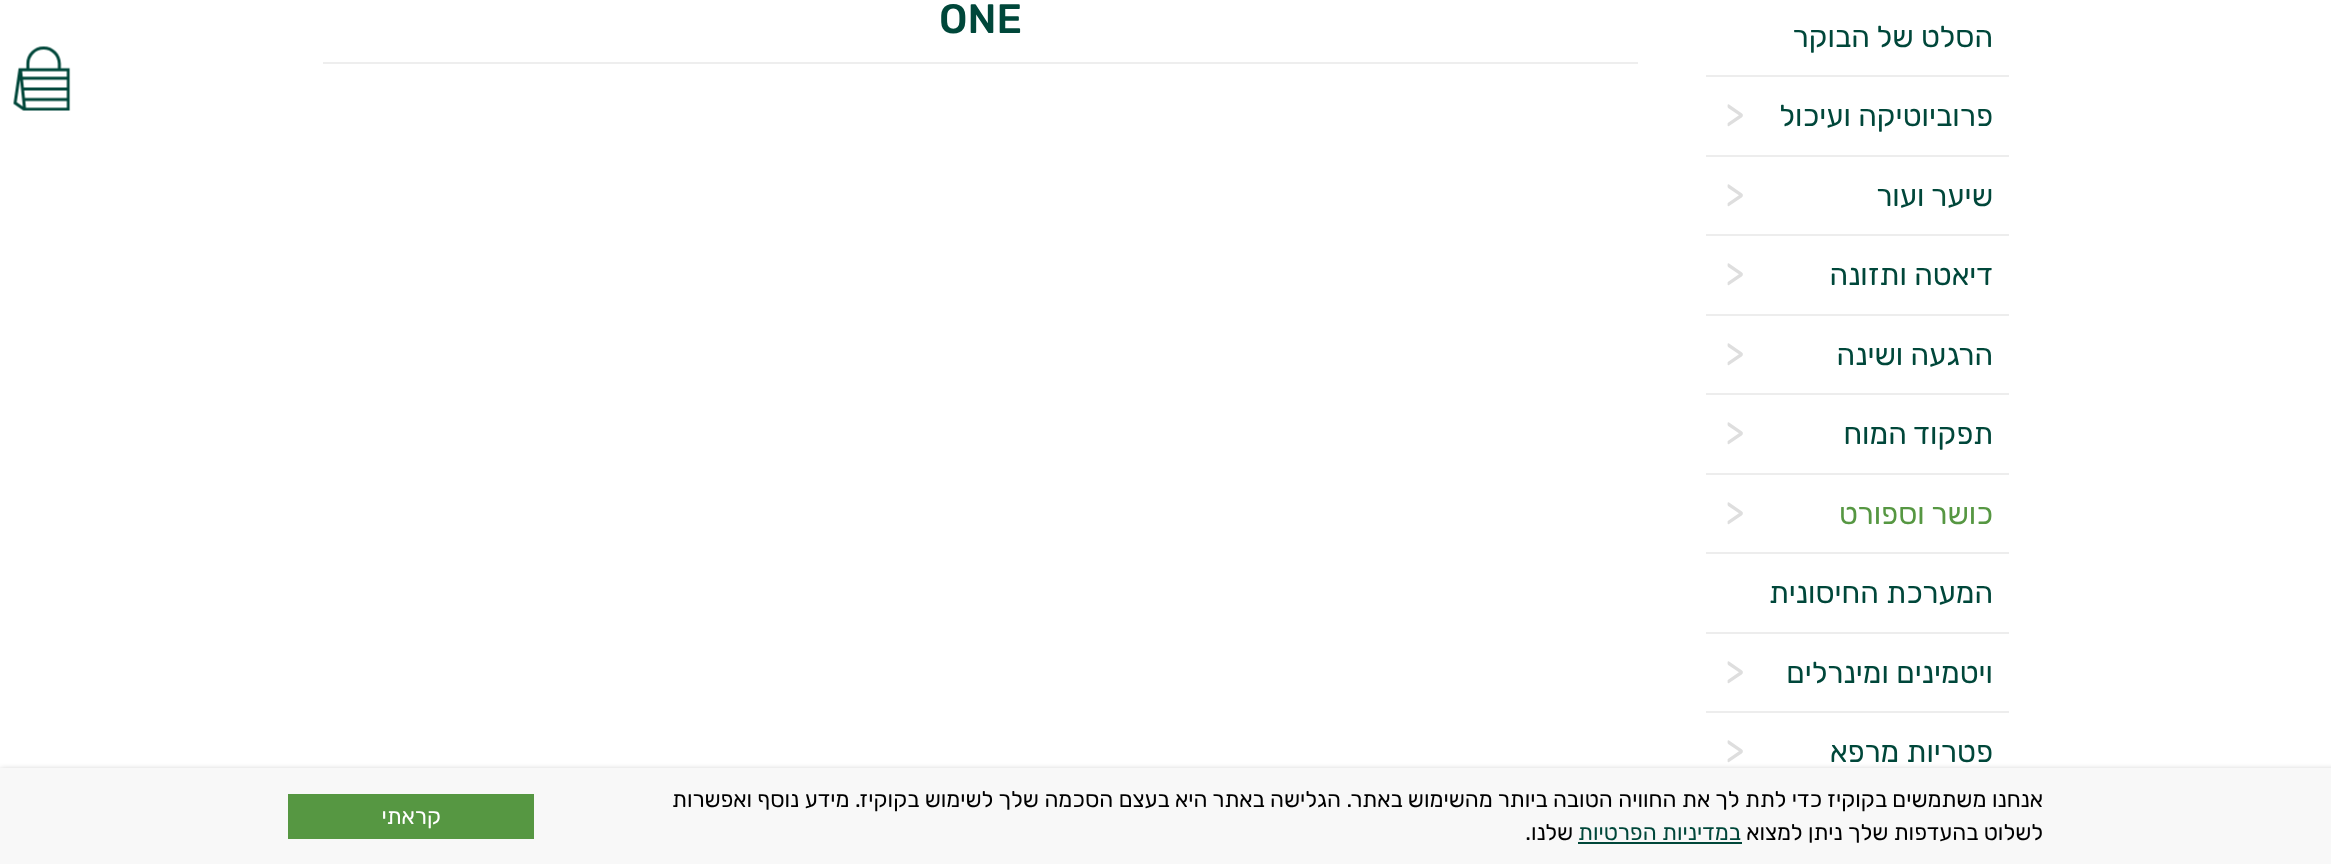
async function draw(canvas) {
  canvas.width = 2331
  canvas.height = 864
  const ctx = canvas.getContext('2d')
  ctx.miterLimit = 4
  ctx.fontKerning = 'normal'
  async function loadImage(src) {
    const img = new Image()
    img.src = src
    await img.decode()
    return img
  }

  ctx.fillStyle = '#fff'
  ctx.fillRect(0, 0, 2331, 864)
  ctx.fillStyle = '#eee'
  ctx.fillRect(323, 62, 1315, 2)
  ctx.font = '300 41px Rubik'
  ctx.fillStyle = '#00473a'
  ctx.fillText('ONE', 939, 33)
  ctx.fillStyle = '#ededed'
  ctx.fillRect(1706, 75, 303, 2)
  ctx.direction = 'rtl'
  ctx.font = '300 30px "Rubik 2"'
  ctx.fillStyle = '#00473a'
  ctx.fillText('הסלט של הבוקר', 1993, 47)
  ctx.fillStyle = '#ededed'
  ctx.fillRect(1706, 155, 303, 2)
  ctx.fillStyle = '#00473a'
  ctx.fillText('פרוביוטיקה ועיכול', 1993, 126)
  ctx.direction = 'ltr'
  ctx.font = '300 39px "Rubik 2"'
  ctx.fillStyle = '#dedede'
  ctx.fillText('>', 1725, 129)
  ctx.fillStyle = '#ededed'
  ctx.fillRect(1706, 234, 303, 2)
  ctx.direction = 'rtl'
  ctx.font = '300 30px "Rubik 2"'
  ctx.fillStyle = '#00473a'
  ctx.fillText('שיער ועור', 1993, 206)
  ctx.direction = 'ltr'
  ctx.font = '300 39px "Rubik 2"'
  ctx.fillStyle = '#dedede'
  ctx.fillText('>', 1725, 209)
  ctx.fillStyle = '#ededed'
  ctx.fillRect(1706, 314, 303, 2)
  ctx.direction = 'rtl'
  ctx.font = '300 30px "Rubik 2"'
  ctx.fillStyle = '#00473a'
  ctx.fillText('דיאטה ותזונה', 1993, 285)
  ctx.direction = 'ltr'
  ctx.font = '300 39px "Rubik 2"'
  ctx.fillStyle = '#dedede'
  ctx.fillText('>', 1725, 288)
  ctx.fillStyle = '#ededed'
  ctx.fillRect(1706, 393, 303, 2)
  ctx.direction = 'rtl'
  ctx.font = '300 30px "Rubik 2"'
  ctx.fillStyle = '#00473a'
  ctx.fillText('הרגעה ושינה', 1993, 365)
  ctx.direction = 'ltr'
  ctx.font = '300 39px "Rubik 2"'
  ctx.fillStyle = '#dedede'
  ctx.fillText('>', 1725, 368)
  ctx.fillStyle = '#ededed'
  ctx.fillRect(1706, 473, 303, 2)
  ctx.direction = 'rtl'
  ctx.font = '300 30px "Rubik 2"'
  ctx.fillStyle = '#00473a'
  ctx.fillText('תפקוד המוח', 1993, 444)
  ctx.direction = 'ltr'
  ctx.font = '300 39px "Rubik 2"'
  ctx.fillStyle = '#dedede'
  ctx.fillText('>', 1725, 447)
  ctx.fillStyle = '#ededed'
  ctx.fillRect(1706, 552, 303, 2)
  ctx.direction = 'rtl'
  ctx.font = '300 30px "Rubik 2"'
  ctx.fillStyle = '#569742'
  ctx.fillText('כושר וספורט', 1993, 524)
  ctx.direction = 'ltr'
  ctx.font = '300 39px "Rubik 2"'
  ctx.fillStyle = '#dedede'
  ctx.fillText('>', 1725, 527)
  ctx.fillStyle = '#ededed'
  ctx.fillRect(1706, 632, 303, 2)
  ctx.direction = 'rtl'
  ctx.font = '300 30px "Rubik 2"'
  ctx.fillStyle = '#00473a'
  ctx.fillText('המערכת החיסונית', 1993, 603)
  ctx.fillStyle = '#ededed'
  ctx.fillRect(1706, 711, 303, 2)
  ctx.fillStyle = '#00473a'
  ctx.fillText('ויטמינים ומינרלים', 1993, 683)
  ctx.direction = 'ltr'
  ctx.font = '300 39px "Rubik 2"'
  ctx.fillStyle = '#dedede'
  ctx.fillText('>', 1725, 686)
  ctx.direction = 'rtl'
  ctx.font = '300 30px "Rubik 2"'
  ctx.fillStyle = '#00473a'
  ctx.fillText('פטריות מרפא', 1993, 762)
  ctx.direction = 'ltr'
  ctx.font = '300 39px "Rubik 2"'
  ctx.fillStyle = '#dedede'
  ctx.fillText('>', 1725, 765)
  ctx.drawImage(await loadImage('image0.png'), 13, 46, 58, 65)
  ctx.fillStyle = '#0000014d'
  ctx.filter = 'blur(3px)'
  ctx.beginPath()
  ctx.rect(0, 770, 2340, 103)
  ctx.fill()
  ctx.filter = 'none'
  ctx.fillStyle = '#f8f8f8'
  ctx.fillRect(0, 768, 2331, 96)
  ctx.direction = 'rtl'
  ctx.font = '300 22.5px "Rubik 2"'
  ctx.fillStyle = '#000'
  ctx.fillText('אנחנו משתמשים בקוקיז כדי לתת לך את החוויה הטובה ביותר מהשימוש באתר. הגלישה באתר היא בעצם הסכמה שלך לשימוש בקוקיז. מידע נוסף ואפשרות', 2043, 807)
  ctx.fillText('לשלוט בהעדפות שלך ניתן למצוא', 2043, 840)
  ctx.fillStyle = '#00473a'
  ctx.fillText('במדיניות הפרטיות', 1741, 840)
  ctx.fillRect(1578, 842, 164, 2)
  ctx.fillStyle = '#000'
  ctx.fillText('שלנו.', 1573, 840)
  ctx.fillStyle = '#569742'
  ctx.fillRect(288, 794, 246, 45)
  ctx.fillStyle = '#fff'
  ctx.fillText('קראתי', 441, 824)
}

draw(document.querySelector('canvas'))
